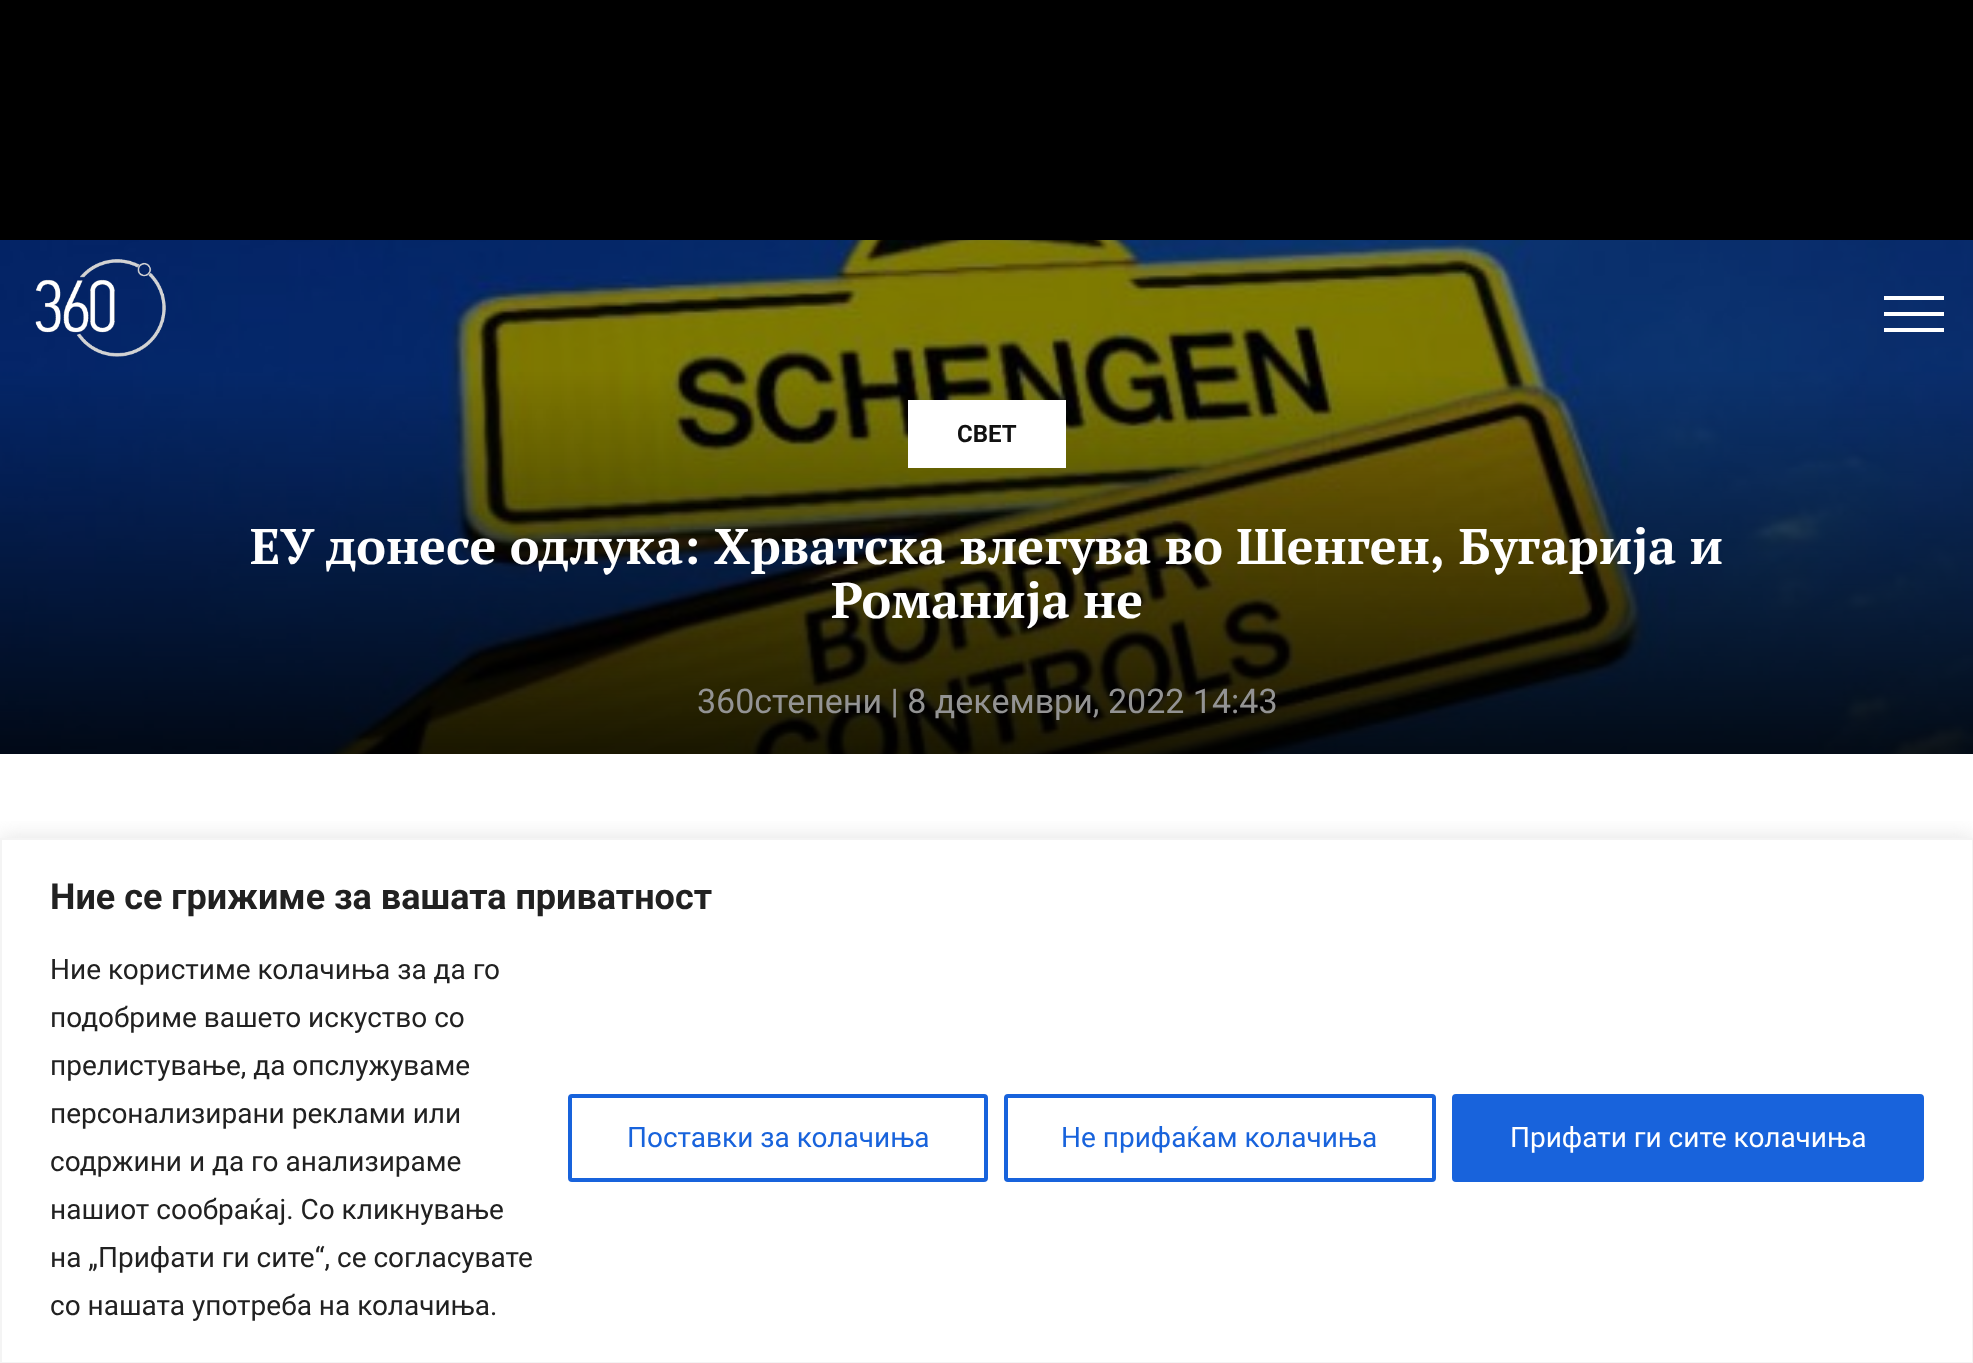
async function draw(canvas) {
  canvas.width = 1973
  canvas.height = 1363
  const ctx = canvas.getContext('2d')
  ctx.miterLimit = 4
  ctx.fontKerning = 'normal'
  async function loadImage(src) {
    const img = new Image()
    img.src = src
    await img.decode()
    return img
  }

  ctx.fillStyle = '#fff'
  ctx.fillRect(0, 0, 1973, 1363)
  ctx.fillStyle = '#000'
  ctx.fillRect(0, 0, 1973, 240)
  ctx.drawImage(await loadImage('image1.png'), 0, 240, 1973, 514)
  ctx.drawImage(await loadImage('image0.png'), 35, 259, 131, 98)
  ctx.fillStyle = '#fff'
  ctx.fillRect(1884, 296, 60, 4)
  ctx.fillRect(1884, 312, 60, 4)
  ctx.fillRect(1884, 328, 60, 4)
  ctx.fillRect(908, 400, 158, 68)
  ctx.font = 'bold 24px Roboto'
  ctx.fillStyle = '#111'
  ctx.fillText('СВЕТ', 957, 442)
  ctx.font = 'bold 50px PT Serif'
  ctx.fillStyle = '#fff'
  ctx.fillText('ЕУ донесе одлука: Хрватска влегува во Шенген, Бугарија и', 250, 564)
  ctx.fillText('Романија не', 831, 618)
  ctx.font = '34px Roboto'
  ctx.fillStyle = '#939393'
  ctx.fillText('360степени | 8 декември, 2022 14:43', 697, 713)
  ctx.save()
  ctx.beginPath()
  ctx.rect(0, 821, 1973, 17)
  ctx.clip()
  ctx.fillStyle = '#acabab4d'
  ctx.filter = 'blur(10px)'
  ctx.beginPath()
  ctx.rect(0, 836, 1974, 526)
  ctx.fill()
  ctx.filter = 'none'
  ctx.restore()
  ctx.strokeStyle = '#f4f4f4'
  ctx.lineWidth = 2
  ctx.strokeRect(1, 839, 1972, 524)
  ctx.font = 'bold 36px Roboto'
  ctx.fillStyle = '#212121'
  ctx.fillText('Ние се грижиме за вашата приватност', 50, 909)
  ctx.font = '28px Roboto'
  ctx.fillText('Ние користиме колачиња за да го', 50, 979)
  ctx.fillText('подобриме вашето искуство со', 50, 1027)
  ctx.fillText('прелистување, да опслужуваме', 50, 1075)
  ctx.fillText('персонализирани реклами или', 50, 1123)
  ctx.fillText('содржини и да го анализираме', 50, 1171)
  ctx.fillText('нашиот сообраќај. Со кликнување', 50, 1219)
  ctx.fillText('на „Прифати ги сите“, се согласувате', 50, 1267)
  ctx.fillText('со нашата употреба на колачиња.', 50, 1315)
  ctx.beginPath()
  ctx.roundRect(570, 1096, 416, 84, 2)
  ctx.strokeStyle = '#1863dc'
  ctx.lineWidth = 4
  ctx.stroke()
  ctx.fillStyle = '#1863dc'
  ctx.fillText('Поставки за колачиња', 627, 1147)
  ctx.beginPath()
  ctx.roundRect(1006, 1096, 428, 84, 2)
  ctx.stroke()
  ctx.fillText('Не прифаќам колачиња', 1061, 1147)
  ctx.beginPath()
  ctx.roundRect(1454, 1096, 468, 84, 2)
  ctx.fill()
  ctx.stroke()
  ctx.fillStyle = '#fff'
  ctx.fillText('Прифати ги сите колачиња', 1510, 1147)
}

draw(document.querySelector('canvas'))
